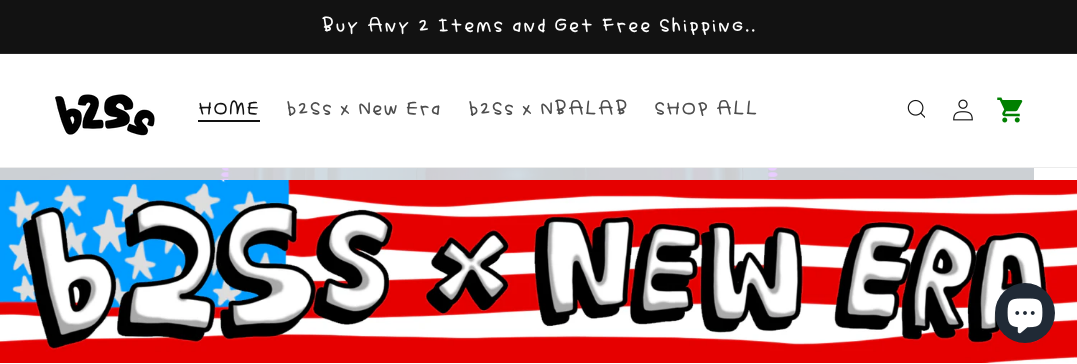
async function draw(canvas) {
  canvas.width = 1077
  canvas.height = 364
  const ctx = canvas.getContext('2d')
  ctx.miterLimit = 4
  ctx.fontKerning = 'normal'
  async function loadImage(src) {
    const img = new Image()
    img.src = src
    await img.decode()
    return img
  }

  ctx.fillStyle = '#fff'
  ctx.fillRect(0, 0, 1077, 364)
  ctx.fillStyle = '#121212'
  ctx.fillRect(0, 0, 1077, 53)
  ctx.fillStyle = '#252525'
  ctx.fillRect(0, 53, 1077, 1)
  ctx.letterSpacing = '1.1px'
  ctx.font = '24px "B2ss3"'
  ctx.fillStyle = '#fff'
  ctx.fillText('Buy Any 2 Items and Get Free Shipping..', 321, 34)
  ctx.fillStyle = '#ececec'
  ctx.fillRect(0, 167, 1077, 1)
  ctx.drawImage(await loadImage('image0.png'), 55, 94, 100, 42)
  ctx.letterSpacing = '0.7px'
  ctx.fillStyle = '#121212'
  ctx.fillText('HOME', 198, 117)
  ctx.fillRect(198, 120, 62, 2)
  ctx.fillStyle = '#4d4d4d'
  ctx.fillText('b2Ss x New Era', 286, 117)
  ctx.fillText('b2Ss x NBALAB', 468, 117)
  ctx.fillText('SHOP ALL', 654, 117)
  ctx.drawImage(await loadImage('image1.png'), 907, 99, 18, 19)
  ctx.drawImage(await loadImage('image2.png'), 953, 99, 20, 22)
  ctx.drawImage(await loadImage('image3.png'), 997, 97, 26, 26)
  ctx.drawImage(await loadImage('image4.png'), 0, 168, 1034, 12)
  ctx.drawImage(await loadImage('image5.png'), 0, 180, 1077, 183)
  ctx.fillStyle = '#202a36'
  ctx.beginPath()
  ctx.arc(1025, 313, 30, 0, 2 * Math.PI)
  ctx.fill()
  ctx.drawImage(await loadImage('image6.png'), 1007, 298, 36, 36)
}

draw(document.querySelector('canvas'))
